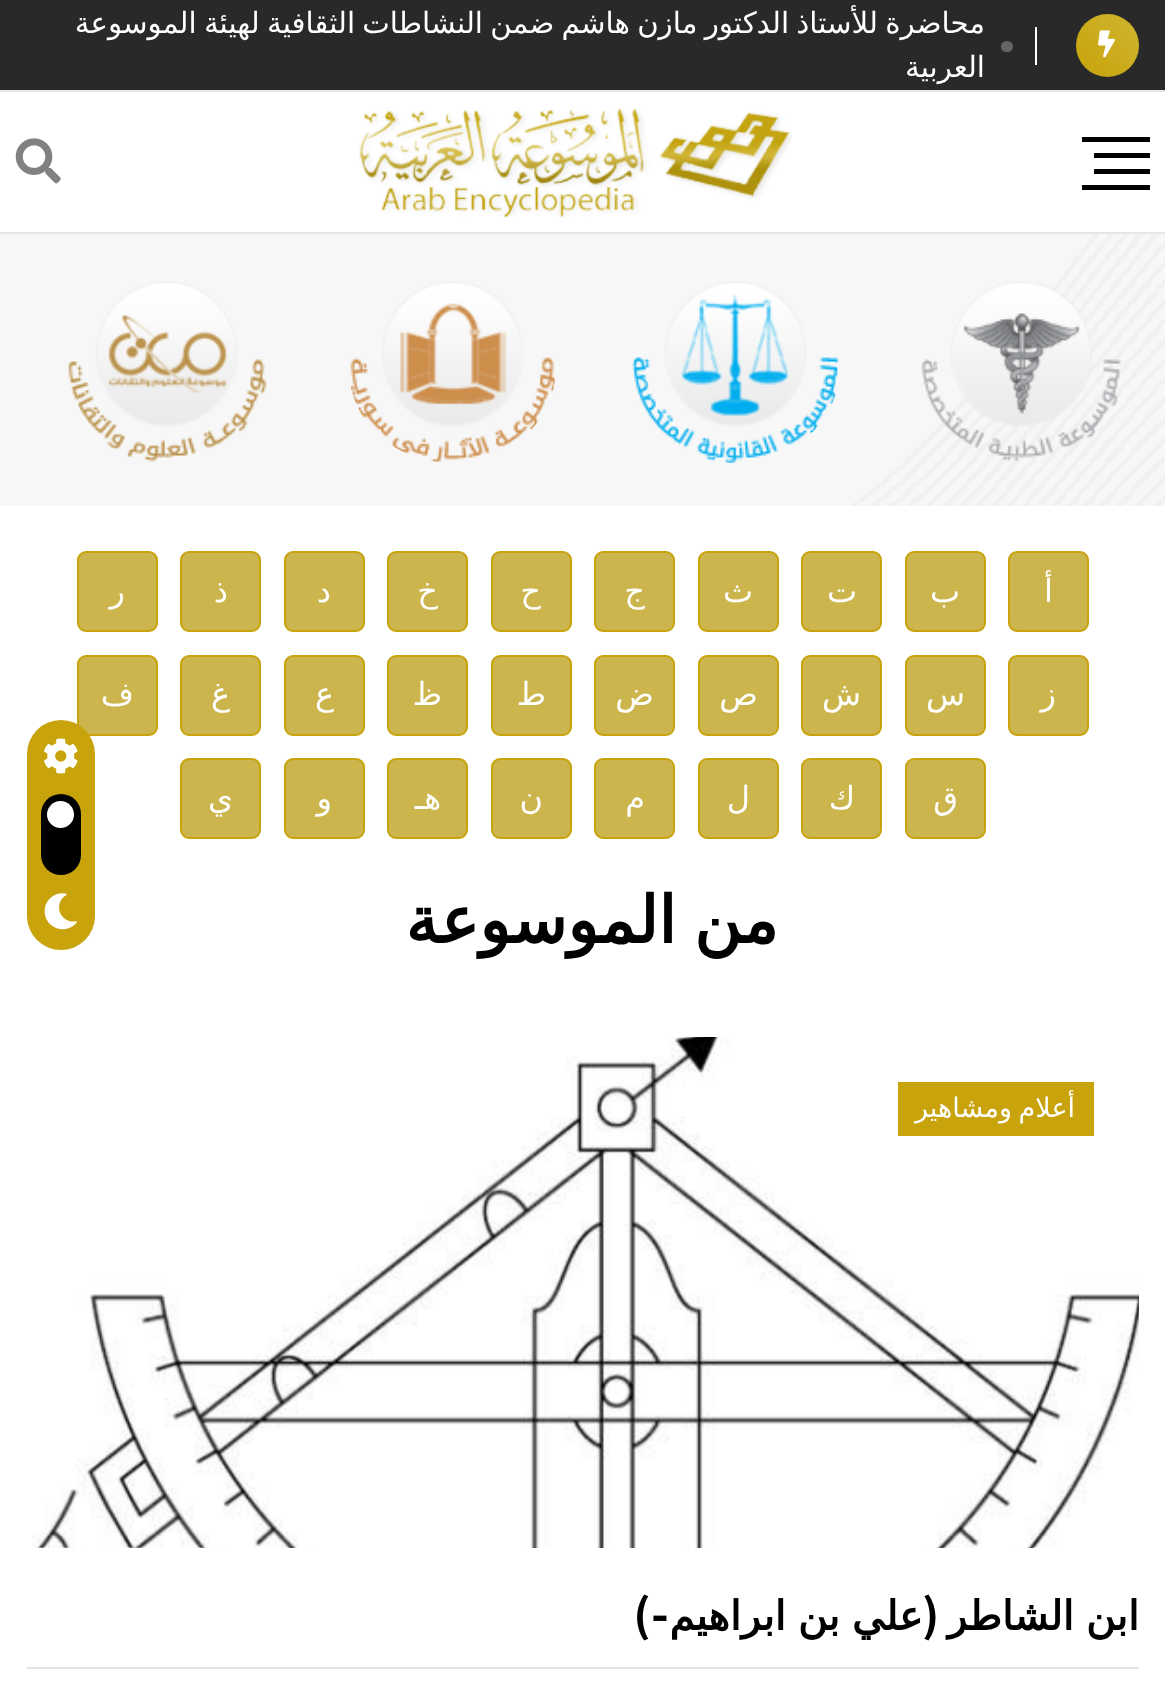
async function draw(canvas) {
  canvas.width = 1165
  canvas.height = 1694
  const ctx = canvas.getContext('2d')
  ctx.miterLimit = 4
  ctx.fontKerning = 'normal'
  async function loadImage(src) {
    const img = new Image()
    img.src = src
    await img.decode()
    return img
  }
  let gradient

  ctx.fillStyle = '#fff'
  ctx.fillRect(0, 0, 1165, 1694)
  ctx.fillStyle = '#e5e5e5'
  ctx.fillRect(0, 90, 1165, 2)
  ctx.fillStyle = '#292929'
  ctx.fillRect(0, 0, 1165, 90)
  gradient = ctx.createLinearGradient(1076, 77, 1139, 14)
  gradient.addColorStop(0, '#c8a30c')
  gradient.addColorStop(1, '#ceb52e')
  ctx.fillStyle = gradient
  ctx.beginPath()
  ctx.arc(1107.5, 45.5, 31.5, 0, 2 * Math.PI)
  ctx.fill()
  ctx.drawImage(await loadImage('image0.png'), 1098, 30, 17, 28)
  ctx.fillStyle = '#fff'
  ctx.fillRect(1035, 27, 2, 38)
  ctx.fillStyle = '#656565'
  ctx.beginPath()
  ctx.roundRect(1001, 41, 12, 11, 5.5)
  ctx.fill()
  ctx.wordSpacing = '-2px'
  ctx.direction = 'rtl'
  ctx.font = '29.25px DejaVu Sans'
  ctx.fillStyle = '#fff'
  ctx.fillText('محاضرة للأستاذ الدكتور مازن هاشم ضمن النشاطات الثقافية لهيئة الموسوعة', 985, 33)
  ctx.wordSpacing = '0px'
  ctx.fillText('العربية', 985, 77)
  ctx.fillStyle = '#e5e5e5'
  ctx.fillRect(0, 232, 1165, 2)
  ctx.fillStyle = '#000'
  ctx.fillRect(1082, 137, 68, 5)
  ctx.fillRect(1094, 153, 56, 5)
  ctx.fillRect(1094, 169, 56, 5)
  ctx.fillRect(1082, 185, 68, 5)
  ctx.drawImage(await loadImage('image1.png'), 359, 108, 433, 110)
  ctx.drawImage(await loadImage('image2.png'), 15, 138, 46, 46)
  ctx.fillStyle = '#f7f7f7'
  ctx.fillRect(0, 234, 1165, 272)
  ctx.drawImage(await loadImage('image3.png'), 851, 234, 314, 272)
  ctx.drawImage(await loadImage('image4.png'), 921, 281, 201, 181)
  ctx.drawImage(await loadImage('image5.png'), 632, 281, 207, 182)
  ctx.drawImage(await loadImage('image6.png'), 350, 281, 205, 181)
  ctx.drawImage(await loadImage('image7.png'), 68, 281, 199, 181)
  ctx.fillStyle = '#cbb54c'
  ctx.beginPath()
  ctx.roundRect(1009, 552, 79, 79, 8)
  ctx.fill()
  ctx.strokeStyle = '#c8a30c'
  ctx.lineWidth = 2
  ctx.stroke()
  ctx.font = '32px DejaVu Sans'
  ctx.fillStyle = '#fff'
  ctx.fillText('أ', 1053, 602)
  ctx.fillStyle = '#cbb54c'
  ctx.beginPath()
  ctx.roundRect(906, 552, 79, 79, 8)
  ctx.fill()
  ctx.stroke()
  ctx.fillStyle = '#fff'
  ctx.fillText('ب', 960, 602)
  ctx.fillStyle = '#cbb54c'
  ctx.beginPath()
  ctx.roundRect(802, 552, 79, 79, 8)
  ctx.fill()
  ctx.stroke()
  ctx.fillStyle = '#fff'
  ctx.fillText('ت', 857, 602)
  ctx.fillStyle = '#cbb54c'
  ctx.beginPath()
  ctx.roundRect(699, 552, 79, 79, 8)
  ctx.fill()
  ctx.stroke()
  ctx.fillStyle = '#fff'
  ctx.fillText('ث', 753, 602)
  ctx.fillStyle = '#cbb54c'
  ctx.beginPath()
  ctx.roundRect(595, 552, 79, 79, 8)
  ctx.fill()
  ctx.stroke()
  ctx.fillStyle = '#fff'
  ctx.fillText('ج', 645, 602)
  ctx.fillStyle = '#cbb54c'
  ctx.beginPath()
  ctx.roundRect(492, 552, 79, 79, 8)
  ctx.fill()
  ctx.stroke()
  ctx.fillStyle = '#fff'
  ctx.fillText('ح', 541, 602)
  ctx.fillStyle = '#cbb54c'
  ctx.beginPath()
  ctx.roundRect(388, 552, 79, 79, 8)
  ctx.fill()
  ctx.stroke()
  ctx.fillStyle = '#fff'
  ctx.fillText('خ', 438, 602)
  ctx.fillStyle = '#cbb54c'
  ctx.beginPath()
  ctx.roundRect(285, 552, 79, 79, 8)
  ctx.fill()
  ctx.stroke()
  ctx.fillStyle = '#fff'
  ctx.fillText('د', 331, 602)
  ctx.fillStyle = '#cbb54c'
  ctx.beginPath()
  ctx.roundRect(181, 552, 79, 79, 8)
  ctx.fill()
  ctx.stroke()
  ctx.fillStyle = '#fff'
  ctx.fillText('ذ', 228, 602)
  ctx.fillStyle = '#cbb54c'
  ctx.beginPath()
  ctx.roundRect(78, 552, 79, 79, 8)
  ctx.fill()
  ctx.stroke()
  ctx.fillStyle = '#fff'
  ctx.fillText('ر', 125, 602)
  ctx.fillStyle = '#cbb54c'
  ctx.beginPath()
  ctx.roundRect(1009, 656, 79, 79, 8)
  ctx.fill()
  ctx.stroke()
  ctx.fillStyle = '#fff'
  ctx.fillText('ز', 1056, 705)
  ctx.fillStyle = '#cbb54c'
  ctx.beginPath()
  ctx.roundRect(906, 656, 79, 79, 8)
  ctx.fill()
  ctx.stroke()
  ctx.fillStyle = '#fff'
  ctx.fillText('س', 965, 705)
  ctx.fillStyle = '#cbb54c'
  ctx.beginPath()
  ctx.roundRect(802, 656, 79, 79, 8)
  ctx.fill()
  ctx.stroke()
  ctx.fillStyle = '#fff'
  ctx.fillText('ش', 861, 705)
  ctx.fillStyle = '#cbb54c'
  ctx.beginPath()
  ctx.roundRect(699, 656, 79, 79, 8)
  ctx.fill()
  ctx.stroke()
  ctx.fillStyle = '#fff'
  ctx.fillText('ص', 758, 705)
  ctx.fillStyle = '#cbb54c'
  ctx.beginPath()
  ctx.roundRect(595, 656, 79, 79, 8)
  ctx.fill()
  ctx.stroke()
  ctx.fillStyle = '#fff'
  ctx.fillText('ض', 654, 705)
  ctx.fillStyle = '#cbb54c'
  ctx.beginPath()
  ctx.roundRect(492, 656, 79, 79, 8)
  ctx.fill()
  ctx.stroke()
  ctx.fillStyle = '#fff'
  ctx.fillText('ط', 546, 705)
  ctx.fillStyle = '#cbb54c'
  ctx.beginPath()
  ctx.roundRect(388, 656, 79, 79, 8)
  ctx.fill()
  ctx.stroke()
  ctx.fillStyle = '#fff'
  ctx.fillText('ظ', 442, 705)
  ctx.fillStyle = '#cbb54c'
  ctx.beginPath()
  ctx.roundRect(285, 656, 79, 79, 8)
  ctx.fill()
  ctx.stroke()
  ctx.fillStyle = '#fff'
  ctx.fillText('ع', 334, 705)
  ctx.fillStyle = '#cbb54c'
  ctx.beginPath()
  ctx.roundRect(181, 656, 79, 79, 8)
  ctx.fill()
  ctx.stroke()
  ctx.fillStyle = '#fff'
  ctx.fillText('غ', 230, 705)
  ctx.fillStyle = '#cbb54c'
  ctx.beginPath()
  ctx.roundRect(78, 656, 79, 79, 8)
  ctx.fill()
  ctx.stroke()
  ctx.fillStyle = '#fff'
  ctx.fillText('ف', 134, 705)
  ctx.fillStyle = '#cbb54c'
  ctx.beginPath()
  ctx.roundRect(906, 759, 79, 79, 8)
  ctx.fill()
  ctx.stroke()
  ctx.fillStyle = '#fff'
  ctx.fillText('ق', 958, 809)
  ctx.fillStyle = '#cbb54c'
  ctx.beginPath()
  ctx.roundRect(802, 759, 79, 79, 8)
  ctx.fill()
  ctx.stroke()
  ctx.fillStyle = '#fff'
  ctx.fillText('ك', 855, 809)
  ctx.fillStyle = '#cbb54c'
  ctx.beginPath()
  ctx.roundRect(699, 759, 79, 79, 8)
  ctx.fill()
  ctx.stroke()
  ctx.fillStyle = '#fff'
  ctx.fillText('ل', 750, 809)
  ctx.fillStyle = '#cbb54c'
  ctx.beginPath()
  ctx.roundRect(595, 759, 79, 79, 8)
  ctx.fill()
  ctx.stroke()
  ctx.fillStyle = '#fff'
  ctx.fillText('م', 645, 809)
  ctx.fillStyle = '#cbb54c'
  ctx.beginPath()
  ctx.roundRect(492, 759, 79, 79, 8)
  ctx.fill()
  ctx.stroke()
  ctx.fillStyle = '#fff'
  ctx.fillText('ن', 543, 809)
  ctx.fillStyle = '#cbb54c'
  ctx.beginPath()
  ctx.roundRect(388, 759, 79, 79, 8)
  ctx.fill()
  ctx.stroke()
  ctx.fillStyle = '#fff'
  ctx.fillText('هـ', 441, 809)
  ctx.fillStyle = '#cbb54c'
  ctx.beginPath()
  ctx.roundRect(285, 759, 79, 79, 8)
  ctx.fill()
  ctx.stroke()
  ctx.fillStyle = '#fff'
  ctx.fillText('و', 332, 809)
  ctx.fillStyle = '#cbb54c'
  ctx.beginPath()
  ctx.roundRect(181, 759, 79, 79, 8)
  ctx.fill()
  ctx.stroke()
  ctx.fillStyle = '#fff'
  ctx.fillText('ي', 233, 809)
  ctx.wordSpacing = '-3px'
  ctx.font = 'bold 65px DejaVu Sans'
  ctx.fillStyle = '#000'
  ctx.fillText('من الموسوعة', 778, 943)
  ctx.drawImage(await loadImage('image8.png'), 32, 1037, 1107, 511)
  ctx.fillStyle = '#c8a30c'
  ctx.fillRect(898, 1082, 196, 54)
  ctx.wordSpacing = '-2px'
  ctx.font = '27px DejaVu Sans'
  ctx.fillStyle = '#fff'
  ctx.fillText('أعلام ومشاهير', 1075, 1117)
  ctx.wordSpacing = '-1px'
  ctx.font = 'bold 40.5px DejaVu Sans'
  ctx.fillStyle = '#000'
  ctx.fillText('ابن الشاطر', 1139, 1630)
  ctx.wordSpacing = '0px'
  ctx.font = 'bold 40.5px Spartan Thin'
  ctx.fillText('(', 938, 1630)
  ctx.wordSpacing = '-1px'
  ctx.font = 'bold 40.5px DejaVu Sans'
  ctx.fillText('علي بن ابراهيم', 923, 1630)
  ctx.wordSpacing = '0px'
  ctx.font = 'bold 40.5px Spartan Thin'
  ctx.fillText('-)', 670, 1630)
  ctx.fillStyle = '#e5e5e5'
  ctx.fillRect(27, 1667, 1112, 2)
  ctx.fillStyle = '#c8a30c'
  ctx.beginPath()
  ctx.roundRect(27, 720, 68, 230, 34)
  ctx.fill()
  ctx.drawImage(await loadImage('image9.png'), 44, 738, 34, 36)
  ctx.fillStyle = '#000'
  ctx.beginPath()
  ctx.roundRect(41, 794, 40, 81, 20)
  ctx.fill()
  ctx.fillStyle = '#fff'
  ctx.beginPath()
  ctx.arc(60.5, 814.5, 13.5, 0, 2 * Math.PI)
  ctx.fill()
  ctx.drawImage(await loadImage('image10.png'), 44, 893, 33, 37)
}

draw(document.querySelector('canvas'))
